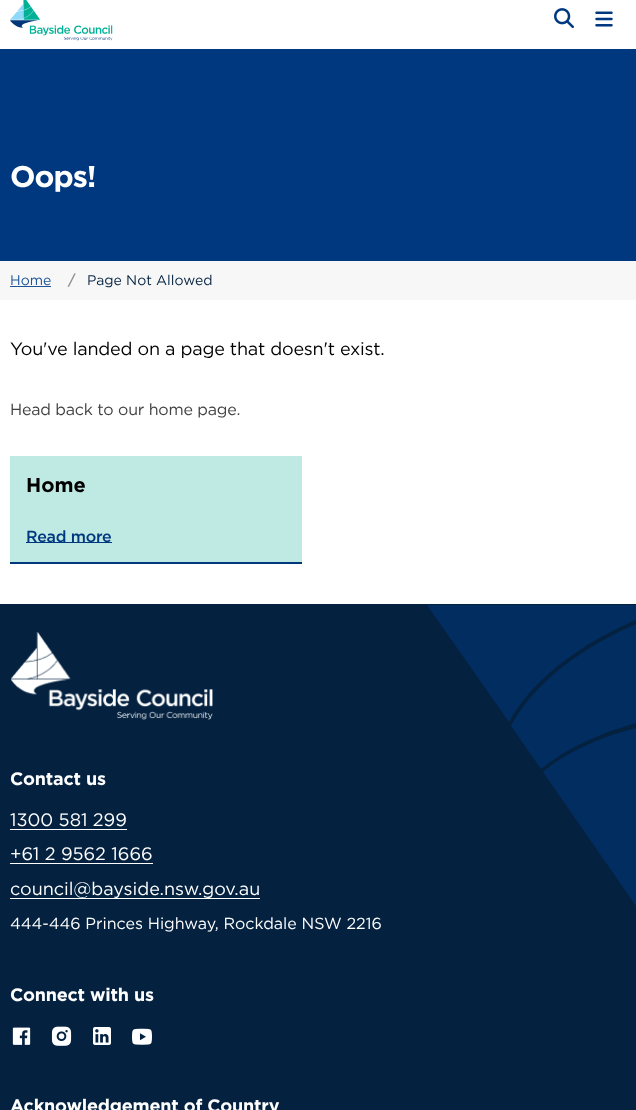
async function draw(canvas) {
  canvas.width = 636
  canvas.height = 1110
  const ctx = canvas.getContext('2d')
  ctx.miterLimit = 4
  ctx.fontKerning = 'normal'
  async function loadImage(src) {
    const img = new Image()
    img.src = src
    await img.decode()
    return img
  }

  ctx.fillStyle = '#fff'
  ctx.fillRect(0, 0, 636, 1110)
  ctx.drawImage(await loadImage('image0.png'), 10, 0, 103, 41)
  ctx.drawImage(await loadImage('image1.png'), 554, 8, 20, 20)
  ctx.drawImage(await loadImage('image2.png'), 595, 11, 18, 16)
  ctx.fillStyle = '#00387f'
  ctx.fillRect(0, 49, 636, 212)
  ctx.letterSpacing = '-1px'
  ctx.font = 'bold 30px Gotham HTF'
  ctx.fillStyle = '#fff'
  ctx.fillText('Oops!', 10, 187)
  ctx.fillStyle = '#f7f7f7'
  ctx.fillRect(0, 261, 636, 39)
  ctx.letterSpacing = '0px'
  ctx.font = '14px Gotham HTF'
  ctx.fillStyle = '#1d5598'
  ctx.fillText('Home', 10, 285)
  ctx.fillRect(10, 286, 41, 1)
  ctx.font = 'bold 14px "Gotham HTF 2"'
  ctx.fillStyle = '#8c8c8c'
  ctx.fillText('/', 68, 285)
  ctx.font = '14px Gotham HTF'
  ctx.fillStyle = '#042240'
  ctx.fillText('Page Not Allowed', 87, 285)
  ctx.letterSpacing = '-0.2px'
  ctx.font = '18px Gotham HTF'
  ctx.fillStyle = '#000'
  ctx.fillText('You\'ve landed on a page that doesn\'t exist.', 10, 355)
  ctx.font = '16px Gotham HTF'
  ctx.fillStyle = '#414141'
  ctx.fillText('Head back to our home page.', 10, 415)
  ctx.fillStyle = '#bfe9e3'
  ctx.fillRect(10, 456, 292, 106)
  ctx.letterSpacing = '0px'
  ctx.font = 'bold 20px Gotham HTF'
  ctx.fillStyle = '#000'
  ctx.fillText('Home', 26, 492)
  ctx.fillStyle = '#00387f'
  ctx.fillRect(26, 542, 86, 1)
  ctx.letterSpacing = '-0.25px'
  ctx.font = '500 16px Gotham HTF'
  ctx.fillText('Read more', 26, 542)
  ctx.fillRect(10, 562, 292, 2)
  ctx.fillStyle = '#042240'
  ctx.fillRect(0, 604, 636, 506)
  ctx.fillStyle = '#022d60'
  ctx.beginPath()
  ctx.moveTo(543, 772)
  ctx.lineTo(636, 906)
  ctx.lineTo(636, 728)
  ctx.bezierCurveTo(597, 738, 564, 754, 543, 772)
  ctx.closePath()
  ctx.moveTo(511, 726)
  ctx.lineTo(541, 769)
  ctx.bezierCurveTo(563, 751, 596, 734, 636, 723)
  ctx.lineTo(636, 624)
  ctx.bezierCurveTo(589, 644, 535, 680, 511, 726)
  ctx.closePath()
  ctx.moveTo(636, 620)
  ctx.lineTo(636, 605)
  ctx.lineTo(427, 605)
  ctx.lineTo(509, 722)
  ctx.bezierCurveTo(534, 676, 588, 640, 636, 620)
  ctx.closePath()
  ctx.fill('evenodd')
  ctx.drawImage(await loadImage('image3.png'), 11, 632, 202, 88)
  ctx.letterSpacing = '-0.2px'
  ctx.font = 'bold 18px Gotham HTF'
  ctx.fillStyle = '#fff'
  ctx.fillText('Contact us', 10, 785)
  ctx.letterSpacing = '0px'
  ctx.font = '18px Gotham HTF'
  ctx.fillText('1300 581 299', 10, 826)
  ctx.fillRect(10, 829, 117, 1)
  ctx.fillText('+61 2 9562 1666', 10, 860)
  ctx.fillRect(10, 863, 143, 1)
  ctx.fillText('council@bayside.nsw.gov.au', 10, 895)
  ctx.fillRect(10, 898, 250, 1)
  ctx.font = '16px Gotham HTF'
  ctx.fillText('444-446 Princes Highway, Rockdale NSW 2216', 10, 929)
  ctx.letterSpacing = '-0.2px'
  ctx.font = 'bold 18px Gotham HTF'
  ctx.fillText('Connect with us', 10, 1001)
  ctx.drawImage(await loadImage('image4.png'), 12, 1027, 19, 18)
  ctx.drawImage(await loadImage('image5.png'), 51, 1026, 21, 20)
  ctx.drawImage(await loadImage('image6.png'), 93, 1027, 18, 18)
  ctx.drawImage(await loadImage('image7.png'), 132, 1028, 20, 17)
  ctx.fillText('Acknowledgement of Country', 10, 1112)
}

draw(document.querySelector('canvas'))
